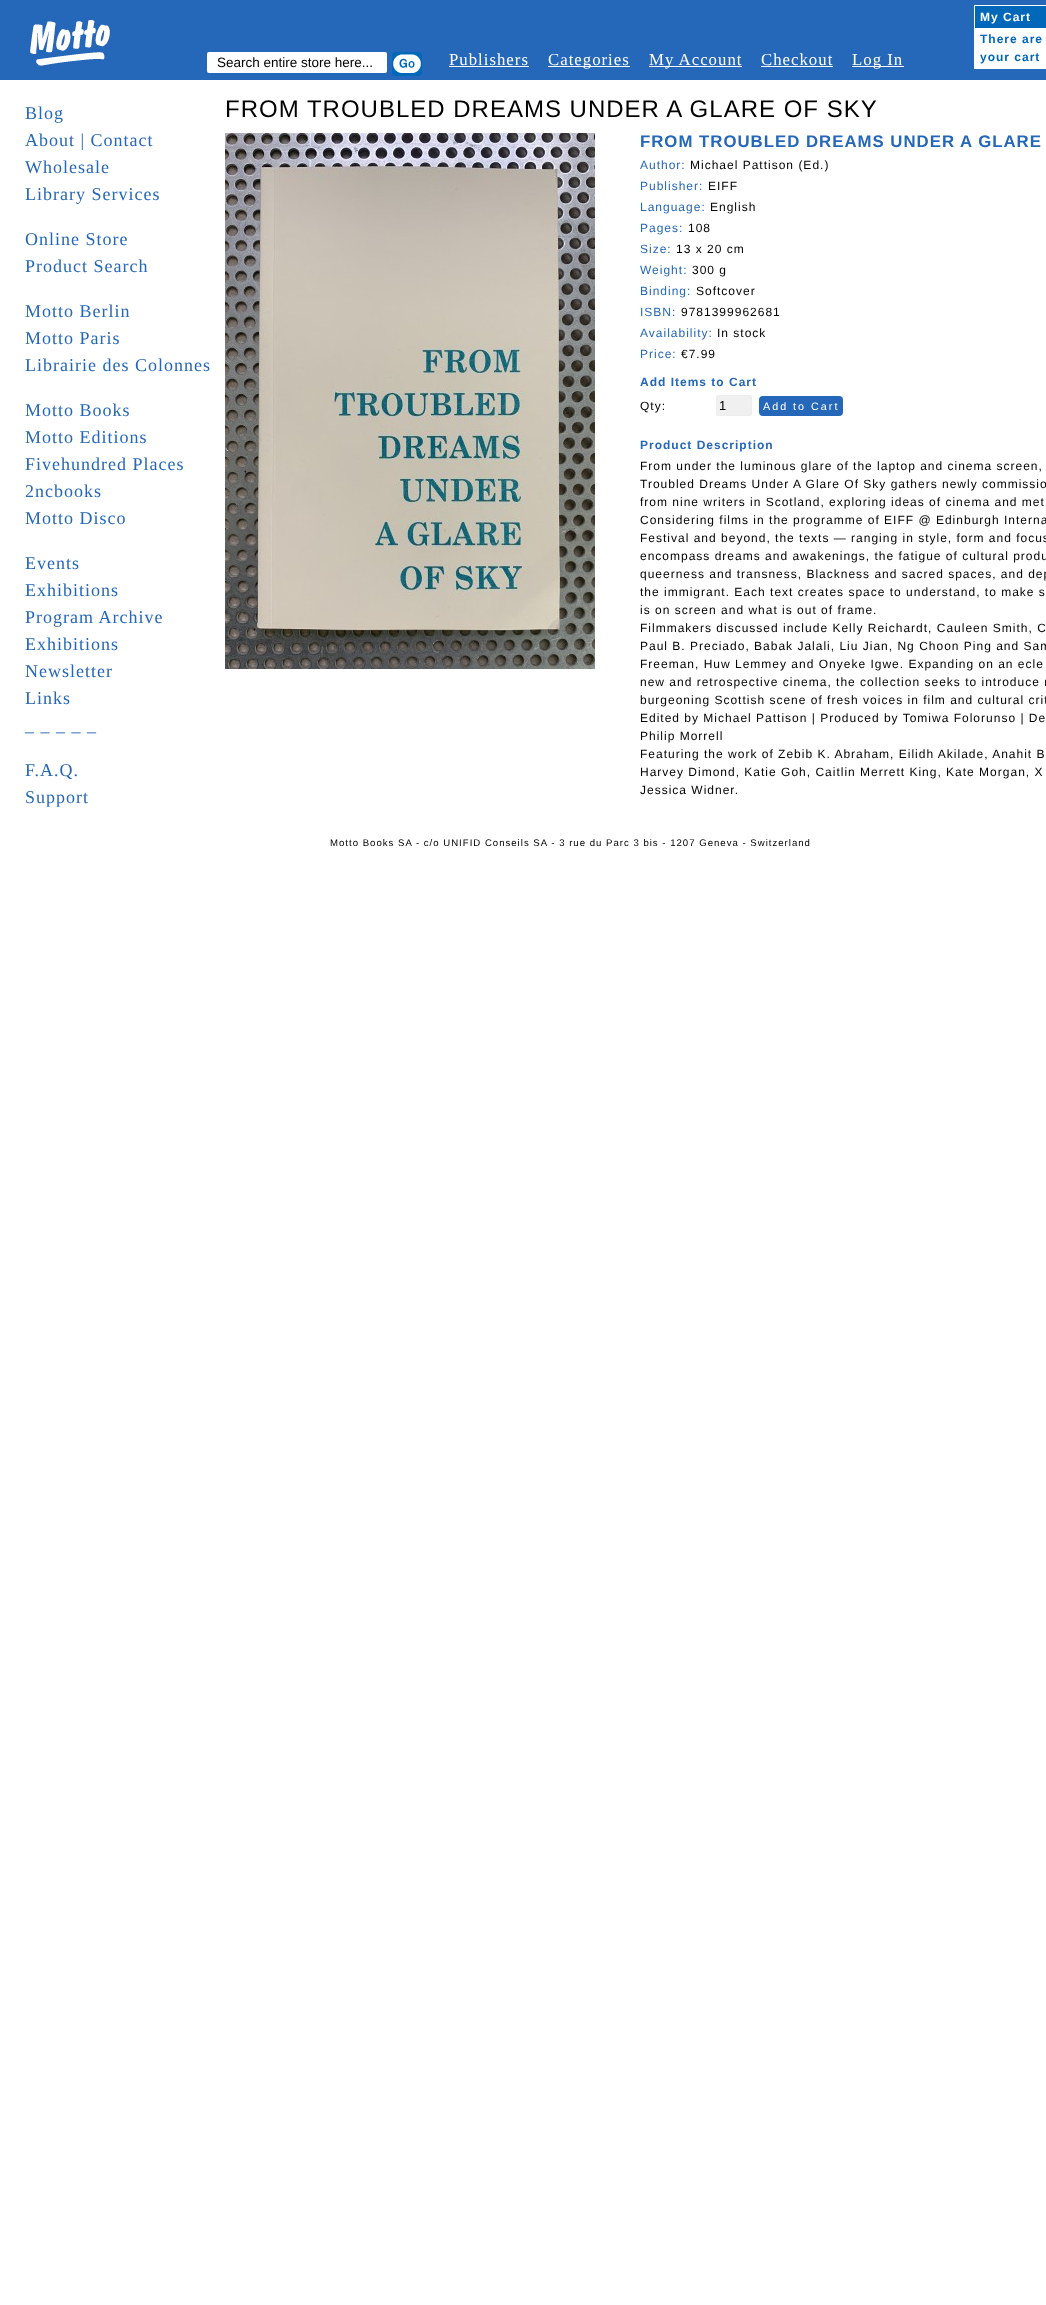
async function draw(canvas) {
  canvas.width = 1046
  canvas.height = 2305
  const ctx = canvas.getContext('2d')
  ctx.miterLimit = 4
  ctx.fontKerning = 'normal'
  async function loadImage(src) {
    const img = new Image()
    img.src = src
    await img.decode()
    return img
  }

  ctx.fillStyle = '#fff'
  ctx.fillRect(0, 0, 1046, 2305)
  ctx.fillStyle = '#2567b8'
  ctx.fillRect(0, 0, 1046, 80)
  ctx.drawImage(await loadImage('image0.png'), 25, 17, 87, 55)
  ctx.fillStyle = '#fff'
  ctx.beginPath()
  ctx.roundRect(207, 52, 180, 21, 2)
  ctx.fill()
  ctx.font = '13.5px Liberation Sans'
  ctx.fillStyle = '#000'
  ctx.fillText('Search entire store here...', 217, 67)
  ctx.drawImage(await loadImage('image1.png'), 392, 52, 30, 24)
  ctx.letterSpacing = '1px'
  ctx.font = '16.8px Liberation Serif'
  ctx.fillStyle = '#fff'
  ctx.fillText('Publishers', 449, 65)
  ctx.fillRect(449, 66, 80, 1)
  ctx.fillRect(548, 66, 82, 1)
  ctx.fillText('Categories', 548, 65)
  ctx.fillRect(649, 66, 93, 1)
  ctx.fillText('My Account', 649, 65)
  ctx.fillText('Checkout', 761, 65)
  ctx.fillRect(761, 66, 72, 1)
  ctx.fillRect(852, 66, 52, 1)
  ctx.fillText('Log In', 852, 65)
  ctx.fillRect(974, 5, 72, 64)
  ctx.fillStyle = '#0167b9'
  ctx.fillRect(975, 6, 71, 22)
  ctx.font = 'bold 12px Liberation Sans'
  ctx.fillStyle = '#fff'
  ctx.fillText('My Cart', 980, 21)
  ctx.fillStyle = '#0167b9'
  ctx.fillText('There are', 980, 43)
  ctx.fillText('your cart', 980, 61)
  ctx.font = '18px Liberation Serif'
  ctx.fillStyle = '#2567b8'
  ctx.fillText('Blog', 25, 119)
  ctx.fillText('About | Contact', 25, 146)
  ctx.fillText('Wholesale', 25, 173)
  ctx.fillText('Library Services', 25, 200)
  ctx.fillText('Online Store', 25, 245)
  ctx.fillText('Product Search', 25, 272)
  ctx.fillText('Motto Berlin', 25, 317)
  ctx.fillText('Motto Paris', 25, 344)
  ctx.fillText('Librairie des Colonnes', 25, 371)
  ctx.fillText('Motto Books', 25, 416)
  ctx.fillText('Motto Editions', 25, 443)
  ctx.fillText('Fivehundred Places', 25, 470)
  ctx.fillText('2ncbooks', 25, 497)
  ctx.fillText('Motto Disco', 25, 524)
  ctx.fillText('Events', 25, 569)
  ctx.fillText('Exhibitions', 25, 596)
  ctx.fillText('Program Archive', 25, 623)
  ctx.fillText('Exhibitions', 25, 650)
  ctx.fillText('Newsletter', 25, 677)
  ctx.fillText('Links', 25, 704)
  ctx.fillText('_ _ _ _ _', 25, 731)
  ctx.fillText('F.A.Q.', 25, 776)
  ctx.fillText('Support', 25, 803)
  ctx.font = '24px Liberation Sans'
  ctx.fillStyle = '#000'
  ctx.fillText('FROM TROUBLED DREAMS UNDER A GLARE OF SKY', 225, 117)
  ctx.drawImage(await loadImage('image2.png'), 225, 133, 370, 536)
  ctx.font = 'bold 16.8px Liberation Sans'
  ctx.fillStyle = '#2567b8'
  ctx.fillText('FROM TROUBLED DREAMS UNDER A GLARE', 640, 147)
  ctx.font = '12px Liberation Sans'
  ctx.fillText('Author:', 640, 169)
  ctx.fillStyle = '#000'
  ctx.fillText('Michael Pattison (Ed.)', 690, 169)
  ctx.fillStyle = '#2567b8'
  ctx.fillText('Publisher:', 640, 190)
  ctx.fillStyle = '#000'
  ctx.fillText('EIFF', 708, 190)
  ctx.fillStyle = '#2567b8'
  ctx.fillText('Language:', 640, 211)
  ctx.fillStyle = '#000'
  ctx.fillText('English', 710, 211)
  ctx.fillStyle = '#2567b8'
  ctx.fillText('Pages:', 640, 232)
  ctx.fillStyle = '#000'
  ctx.fillText('108', 688, 232)
  ctx.fillStyle = '#2567b8'
  ctx.fillText('Size:', 640, 253)
  ctx.fillStyle = '#000'
  ctx.fillText('13 x 20 cm', 676, 253)
  ctx.fillStyle = '#2567b8'
  ctx.fillText('Weight:', 640, 274)
  ctx.fillStyle = '#000'
  ctx.fillText('300 g', 692, 274)
  ctx.fillStyle = '#2567b8'
  ctx.fillText('Binding:', 640, 295)
  ctx.fillStyle = '#000'
  ctx.fillText('Softcover', 696, 295)
  ctx.fillStyle = '#2567b8'
  ctx.fillText('ISBN:', 640, 316)
  ctx.fillStyle = '#000'
  ctx.fillText('9781399962681', 681, 316)
  ctx.fillStyle = '#2567b8'
  ctx.fillText('Availability:', 640, 337)
  ctx.fillStyle = '#000'
  ctx.fillText('In stock', 717, 337)
  ctx.fillStyle = '#2567b8'
  ctx.fillText('Price:', 640, 358)
  ctx.fillStyle = '#000'
  ctx.fillText('€7.99', 681, 358)
  ctx.font = 'bold 12px Liberation Sans'
  ctx.fillStyle = '#2567b8'
  ctx.fillText('Add Items to Cart', 640, 386)
  ctx.font = '12px Liberation Sans'
  ctx.fillStyle = '#000'
  ctx.fillText('Qty:', 640, 410)
  ctx.fillStyle = '#f0f0f0'
  ctx.beginPath()
  ctx.roundRect(716.5, 395.5, 35, 20, 1.5)
  ctx.fill()
  ctx.strokeStyle = '#eee'
  ctx.stroke()
  ctx.letterSpacing = '0px'
  ctx.font = '13px Liberation Sans'
  ctx.fillStyle = '#000'
  ctx.fillText('1', 719, 410)
  ctx.fillStyle = '#2567b8'
  ctx.beginPath()
  ctx.roundRect(759, 396, 84, 20, 4)
  ctx.fill()
  ctx.letterSpacing = '2px'
  ctx.font = '10.75px Liberation Sans'
  ctx.fillStyle = '#fff'
  ctx.fillText('Add to Cart', 763, 410)
  ctx.letterSpacing = '1px'
  ctx.font = 'bold 12px Liberation Sans'
  ctx.fillStyle = '#2567b8'
  ctx.fillText('Product Description', 640, 449)
  ctx.font = '12px Liberation Sans'
  ctx.fillStyle = '#000'
  ctx.fillText('From under the luminous glare of the laptop and cinema screen,', 640, 470)
  ctx.fillText('Troubled Dreams Under A Glare Of Sky gathers newly commissio', 640, 488)
  ctx.fillText('from nine writers in Scotland, exploring ideas of cinema and met', 640, 506)
  ctx.fillText('Considering films in the programme of EIFF @ Edinburgh Interna', 640, 524)
  ctx.fillText('Festival and beyond, the texts — ranging in style, form and focus', 640, 542)
  ctx.fillText('encompass dreams and awakenings, the fatigue of cultural produ', 640, 560)
  ctx.fillText('queerness and transness, Blackness and sacred spaces, and dep', 640, 578)
  ctx.fillText('the immigrant. Each text creates space to understand, to make s', 640, 596)
  ctx.fillText('is on screen and what is out of frame.', 640, 614)
  ctx.fillText('Filmmakers discussed include Kelly Reichardt, Cauleen Smith, C', 640, 632)
  ctx.fillText('Paul B. Preciado, Babak Jalali, Liu Jian, Ng Choon Ping and Sam', 640, 650)
  ctx.fillText('Freeman, Huw Lemmey and Onyeke Igwe. Expanding on an ecle', 640, 668)
  ctx.fillText('new and retrospective cinema, the collection seeks to introduce r', 640, 686)
  ctx.fillText('burgeoning Scottish scene of fresh voices in film and cultural crit', 640, 704)
  ctx.fillText('Edited by Michael Pattison | Produced by Tomiwa Folorunso | De', 640, 722)
  ctx.fillText('Philip Morrell', 640, 740)
  ctx.fillText('Featuring the work of Zebib K. Abraham, Eilidh Akilade, Anahit B', 640, 758)
  ctx.fillText('Harvey Dimond, Katie Goh, Caitlin Merrett King, Kate Morgan, X', 640, 776)
  ctx.fillText('Jessica Widner.', 640, 794)
  ctx.font = '9.6px Liberation Sans'
  ctx.fillText('Motto Books SA - c/o UNIFID Conseils SA - 3 rue du Parc 3 bis - 1207 Geneva - Switzerland', 330, 846)
}

draw(document.querySelector('canvas'))
